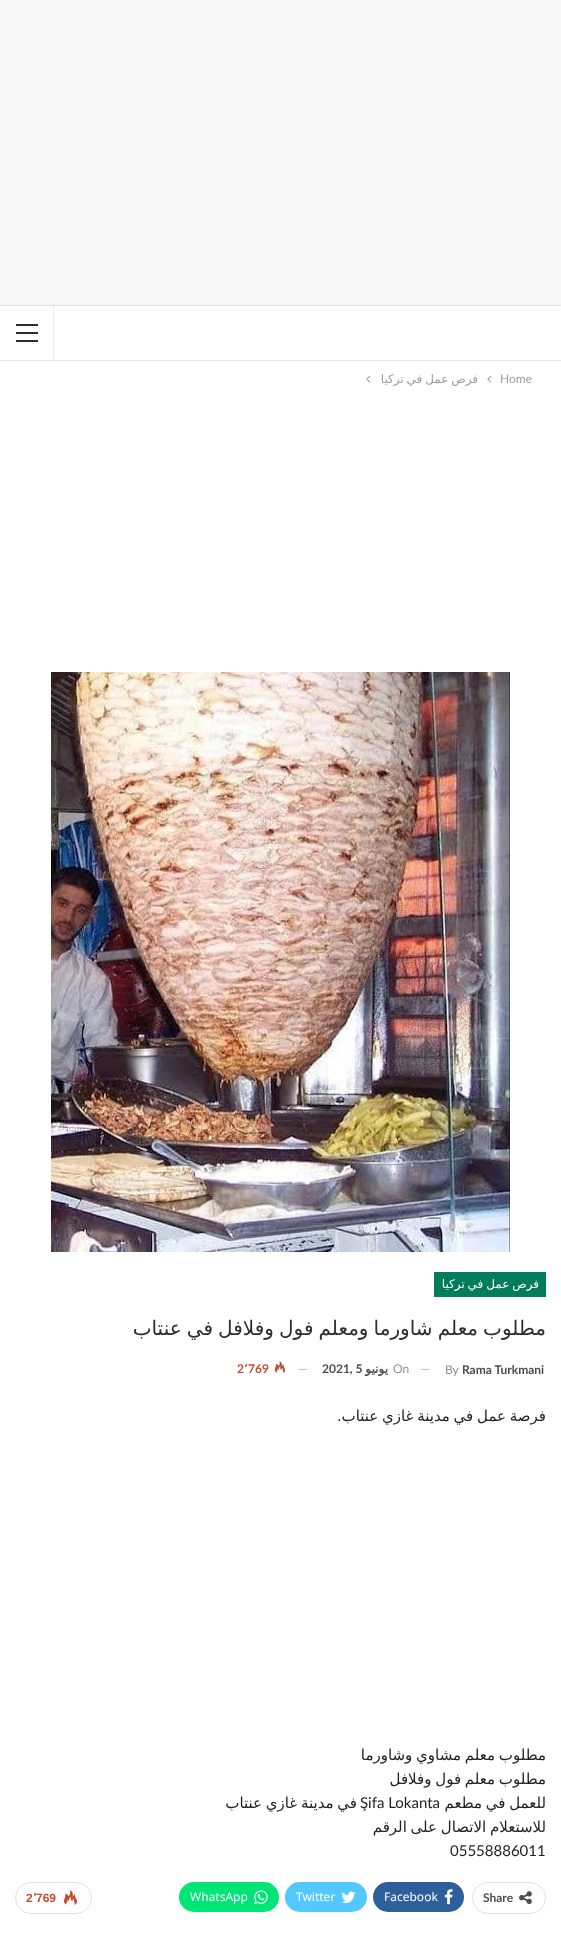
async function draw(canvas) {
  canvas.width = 561
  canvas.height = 1942
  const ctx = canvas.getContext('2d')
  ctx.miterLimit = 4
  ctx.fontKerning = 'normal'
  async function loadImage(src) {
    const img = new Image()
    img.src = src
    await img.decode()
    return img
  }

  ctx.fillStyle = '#f8f8f8'
  ctx.fillRect(0, 0, 561, 1942)
  ctx.fillStyle = '#00000045'
  ctx.filter = 'blur(1px)'
  ctx.beginPath()
  ctx.rect(0, 306, 561, 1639)
  ctx.fill()
  ctx.filter = 'none'
  ctx.fillStyle = '#fff'
  ctx.fillRect(0, 306, 561, 1636)
  ctx.fillStyle = '#e5e5e5'
  ctx.fillRect(0, 360, 561, 1)
  ctx.fillStyle = '#ededed'
  ctx.fillRect(53, 306, 1, 54)
  ctx.fillStyle = '#2c2c2c'
  ctx.fillRect(16, 332, 22, 2)
  ctx.fillRect(16, 324, 22, 2)
  ctx.fillRect(16, 340, 22, 2)
  ctx.font = '12px Lato'
  ctx.fillStyle = '#9e9e9e'
  ctx.fillText('Home', 500, 383)
  ctx.drawImage(await loadImage('image0.png'), 487, 375, 5, 8)
  ctx.wordSpacing = '-1px'
  ctx.direction = 'rtl'
  ctx.font = '12px DejaVu Sans'
  ctx.fillText('فرص عمل في تركيا', 478, 383)
  ctx.drawImage(await loadImage('image0.png'), 366, 375, 5, 8)
  ctx.drawImage(await loadImage('image1.png'), 51, 672, 459, 580)
  ctx.fillStyle = '#027c5a'
  ctx.fillRect(434, 1272, 112, 25)
  ctx.fillStyle = '#fff'
  ctx.fillText('فرص عمل في تركيا', 539, 1288)
  ctx.save()
  ctx.beginPath()
  ctx.rect(15, 1272, 531, 111)
  ctx.clip()
  ctx.wordSpacing = '-1.25px'
  ctx.font = '20px DejaVu Sans'
  ctx.fillStyle = '#2d2d2d'
  ctx.fillText('مطلوب معلم شاورما ومعلم فول وفلافل في عنتاب', 546, 1335)
  ctx.restore()
  ctx.wordSpacing = '0px'
  ctx.direction = 'ltr'
  ctx.font = 'bold 12px Lato'
  ctx.fillStyle = '#4d4d4d'
  ctx.fillText('Rama Turkmani', 462, 1374)
  ctx.font = '12px Lato'
  ctx.fillStyle = '#8f8f8f'
  ctx.fillText('By', 445, 1374)
  ctx.fillStyle = '#c4c4c4'
  ctx.fillRect(421, 1369, 9, 1)
  ctx.fillStyle = '#8f8f8f'
  ctx.fillText('On', 393, 1373)
  ctx.direction = 'rtl'
  ctx.font = 'bold 12px DejaVu Sans'
  ctx.fillStyle = '#4d4d4d'
  ctx.fillText('يونيو', 388, 1373)
  ctx.direction = 'ltr'
  ctx.font = 'bold 12px Lato'
  ctx.fillText('2021, 5', 322, 1373)
  ctx.fillStyle = '#c4c4c4'
  ctx.fillRect(298, 1369, 9, 1)
  ctx.drawImage(await loadImage('image2.png'), 274, 1361, 12, 12)
  ctx.fillStyle = '#c44b2d'
  ctx.fillText('769', 248, 1373)
  ctx.font = 'bold 12px DejaVu Sans'
  ctx.fillText('٬', 244, 1373)
  ctx.font = 'bold 12px Lato'
  ctx.fillText('2', 237, 1373)
  ctx.wordSpacing = '-1px'
  ctx.direction = 'rtl'
  ctx.font = '15px DejaVu Sans'
  ctx.fillStyle = '#222'
  ctx.fillText('فرصة عمل في مدينة غازي عنتاب', 546, 1421)
  ctx.wordSpacing = '0px'
  ctx.font = '15px Lato'
  ctx.fillText('.', 341, 1421)
  ctx.wordSpacing = '-1px'
  ctx.font = '15px DejaVu Sans'
  ctx.fillText('مطلوب معلم مشاوي وشاورما', 546, 1760)
  ctx.fillText('مطلوب معلم فول وفلافل', 546, 1784)
  ctx.fillText('للعمل في مطعم', 546, 1808)
  ctx.wordSpacing = '0px'
  ctx.direction = 'ltr'
  ctx.font = '15px Lato'
  ctx.fillText('Şifa Lokanta', 360, 1808)
  ctx.wordSpacing = '-1px'
  ctx.direction = 'rtl'
  ctx.font = '15px DejaVu Sans'
  ctx.fillText('في مدينة غازي عنتاب', 357, 1808)
  ctx.fillText('للاستعلام الاتصال على الرقم', 546, 1832)
  ctx.wordSpacing = '0px'
  ctx.direction = 'ltr'
  ctx.font = '15px Lato'
  ctx.fillText('05558886011', 450, 1856)
  ctx.beginPath()
  ctx.roundRect(472.5, 1882.5, 73, 31, 15.5)
  ctx.strokeStyle = '#e2e2e2'
  ctx.stroke()
  ctx.drawImage(await loadImage('image3.png'), 519, 1891, 13, 14)
  ctx.font = 'bold 12px Lato'
  ctx.fillStyle = '#4d4d4d'
  ctx.fillText('Share', 483, 1902)
  ctx.fillStyle = '#2d5f9a'
  ctx.beginPath()
  ctx.roundRect(373, 1882, 91, 30, 15)
  ctx.fill()
  ctx.drawImage(await loadImage('image4.png'), 444, 1889, 9, 16)
  ctx.font = '12px Noto Sans'
  ctx.fillStyle = '#fff'
  ctx.fillText('Facebook', 384, 1901)
  ctx.fillStyle = '#53c7ff'
  ctx.beginPath()
  ctx.roundRect(285, 1882, 82, 30, 15)
  ctx.fill()
  ctx.drawImage(await loadImage('image5.png'), 341, 1891, 15, 12)
  ctx.fillStyle = '#fff'
  ctx.fillText('Twitter', 296, 1901)
  ctx.fillStyle = '#00e676'
  ctx.beginPath()
  ctx.roundRect(179, 1882, 100, 30, 15)
  ctx.fill()
  ctx.drawImage(await loadImage('image6.png'), 254, 1890, 14, 15)
  ctx.fillStyle = '#fff'
  ctx.fillText('WhatsApp', 190, 1901)
  ctx.beginPath()
  ctx.roundRect(15.5, 1882.5, 76, 31, 15.5)
  ctx.stroke()
  ctx.drawImage(await loadImage('image7.png'), 64, 1890, 13, 15)
  ctx.font = 'bold 12px Liberation Sans'
  ctx.fillStyle = '#c44b2d'
  ctx.fillText('769', 36, 1902)
  ctx.font = 'bold 12px DejaVu Sans'
  ctx.fillText('٬', 33, 1902)
  ctx.font = 'bold 12px Liberation Sans'
  ctx.fillText('2', 26, 1902)
}

draw(document.querySelector('canvas'))
